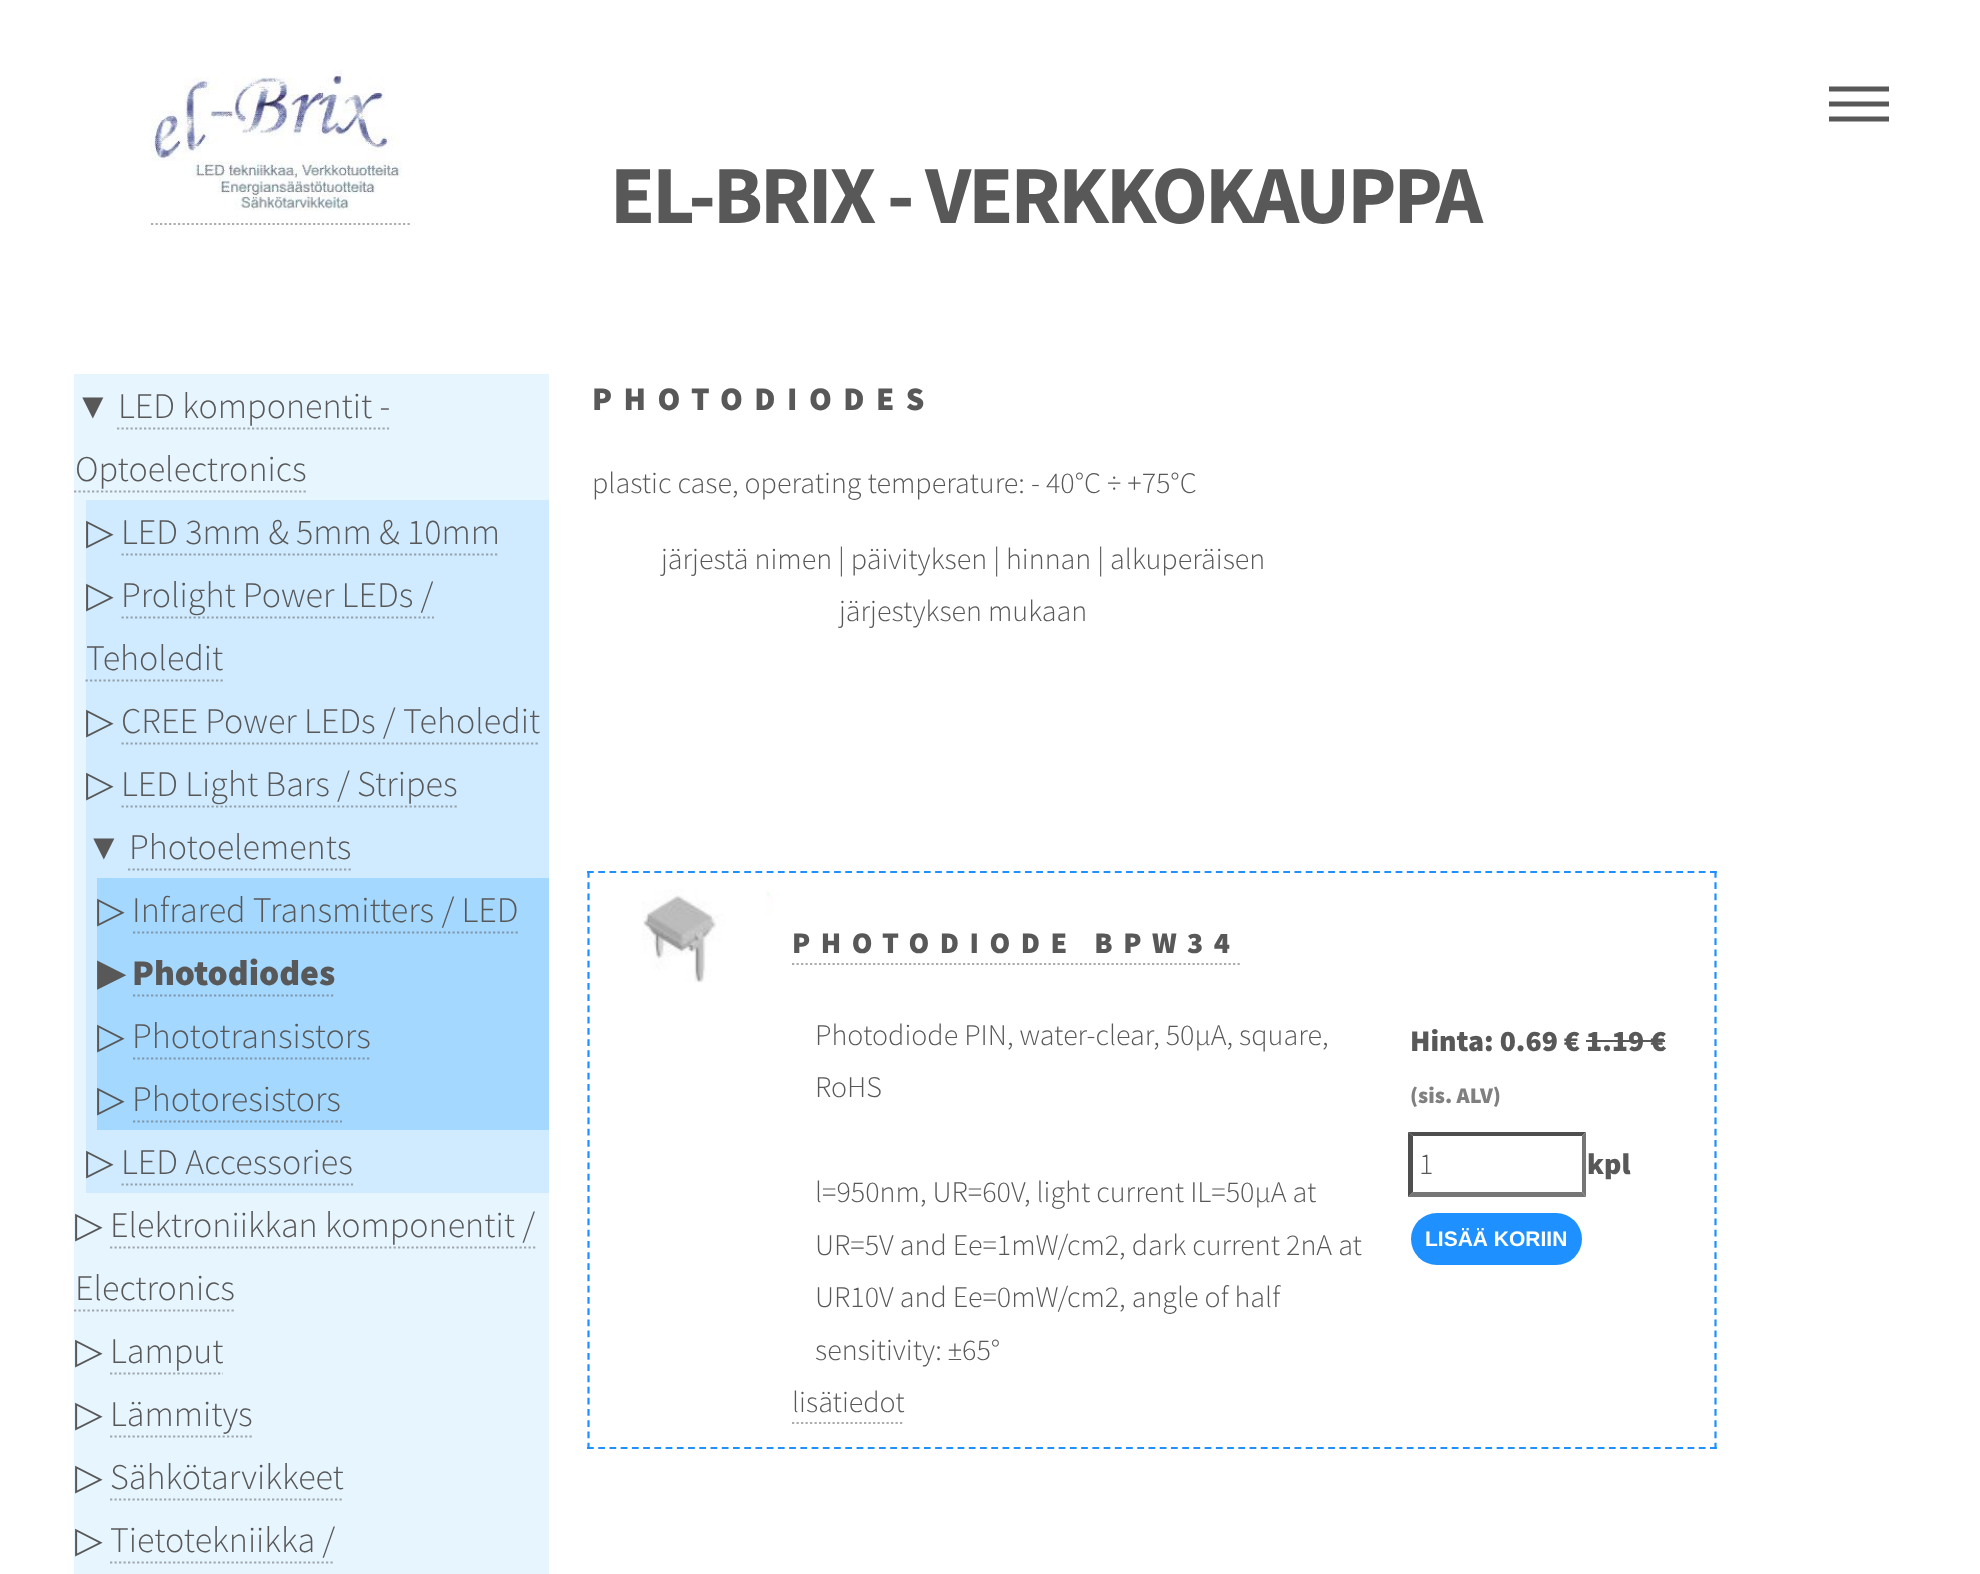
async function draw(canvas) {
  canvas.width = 1980
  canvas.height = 1574
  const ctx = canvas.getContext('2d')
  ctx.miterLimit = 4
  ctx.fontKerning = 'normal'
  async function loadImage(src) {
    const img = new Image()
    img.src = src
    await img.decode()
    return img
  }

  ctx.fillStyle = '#fff'
  ctx.fillRect(0, 0, 1980, 1574)
  ctx.beginPath()
  ctx.moveTo(1829, 89)
  ctx.lineTo(1889, 89)
  ctx.moveTo(1829, 104)
  ctx.lineTo(1889, 104)
  ctx.moveTo(1829, 119)
  ctx.lineTo(1889, 119)
  ctx.strokeStyle = '#585858'
  ctx.lineWidth = 4.8
  ctx.stroke()
  ctx.drawImage(await loadImage('image0.png'), 150, 69, 252, 142)
  ctx.beginPath()
  ctx.moveTo(151, 224)
  ctx.lineTo(412, 224)
  ctx.strokeStyle = '#acacac'
  ctx.lineWidth = 2.2
  ctx.setLineDash([2.25, 2.25])
  ctx.stroke()
  ctx.letterSpacing = '-2.9px'
  ctx.font = 'bold 82.5px Source Sans Pro'
  ctx.fillStyle = '#585858'
  ctx.fillText('EL-BRIX - VERKKOKAUPPA', 610, 223)
  ctx.fillStyle = '#e7f5ff'
  ctx.fillRect(74, 374, 475, 1200)
  ctx.letterSpacing = '0px'
  ctx.font = '36px Liberation Sans'
  ctx.fillStyle = '#585858'
  ctx.fillText('▼', 75, 418)
  ctx.font = '300 36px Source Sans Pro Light'
  ctx.fillText('LED komponentit -', 118, 418)
  ctx.beginPath()
  ctx.moveTo(117, 428.5)
  ctx.lineTo(389, 428.5)
  ctx.strokeStyle = '#a0a7ac'
  ctx.stroke()
  ctx.fillText('Optoelectronics', 75, 481)
  ctx.beginPath()
  ctx.moveTo(74, 491.5)
  ctx.lineTo(306, 491.5)
  ctx.stroke()
  ctx.fillStyle = '#d0ebff'
  ctx.fillRect(86, 500, 463, 693)
  ctx.font = '36px DejaVu Sans'
  ctx.fillStyle = '#585858'
  ctx.fillText('▷', 86, 544)
  ctx.font = '300 36px Source Sans Pro Light'
  ctx.fillText('LED 3mm & 5mm & 10mm', 121, 544)
  ctx.beginPath()
  ctx.moveTo(121.5, 554.5)
  ctx.lineTo(499.5, 554.5)
  ctx.strokeStyle = '#94a2ac'
  ctx.stroke()
  ctx.font = '36px DejaVu Sans'
  ctx.fillText('▷', 86, 607)
  ctx.font = '300 36px Source Sans Pro Light'
  ctx.fillText('Prolight Power LEDs /', 121, 607)
  ctx.beginPath()
  ctx.moveTo(121.5, 617.5)
  ctx.lineTo(434, 617.5)
  ctx.stroke()
  ctx.fillText('Teholedit', 86, 670)
  ctx.beginPath()
  ctx.moveTo(85.5, 680.5)
  ctx.lineTo(223, 680.5)
  ctx.strokeStyle = '#58585880'
  ctx.stroke()
  ctx.font = '36px DejaVu Sans'
  ctx.fillText('▷', 86, 733)
  ctx.font = '300 36px Source Sans Pro Light'
  ctx.fillText('CREE Power LEDs / Teholedit', 121, 733)
  ctx.beginPath()
  ctx.moveTo(121.5, 743.5)
  ctx.lineTo(540, 743.5)
  ctx.strokeStyle = '#94a2ac'
  ctx.stroke()
  ctx.font = '36px DejaVu Sans'
  ctx.fillText('▷', 86, 796)
  ctx.font = '300 36px Source Sans Pro Light'
  ctx.fillText('LED Light Bars / Stripes', 121, 796)
  ctx.beginPath()
  ctx.moveTo(121.5, 806.5)
  ctx.lineTo(457, 806.5)
  ctx.stroke()
  ctx.font = '36px Liberation Sans'
  ctx.fillText('▼', 86, 859)
  ctx.font = '300 36px Source Sans Pro Light'
  ctx.fillText('Photoelements', 129, 859)
  ctx.beginPath()
  ctx.moveTo(128, 869.5)
  ctx.lineTo(351, 869.5)
  ctx.stroke()
  ctx.fillStyle = '#a5d8ff'
  ctx.fillRect(97, 878, 452, 252)
  ctx.font = '36px DejaVu Sans'
  ctx.fillStyle = '#585858'
  ctx.fillText('▷', 97, 922)
  ctx.font = '300 36px Source Sans Pro Light'
  ctx.fillText('Infrared Transmitters / LED', 132, 922)
  ctx.beginPath()
  ctx.moveTo(133, 932.5)
  ctx.lineTo(520, 932.5)
  ctx.strokeStyle = '#7f98ac'
  ctx.stroke()
  ctx.font = 'bold 36px DejaVu Sans'
  ctx.fillText('▶', 97, 985)
  ctx.beginPath()
  ctx.moveTo(133, 995.5)
  ctx.lineTo(335, 995.5)
  ctx.stroke()
  ctx.font = '900 36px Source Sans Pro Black'
  ctx.fillText('Photodiodes', 132, 985)
  ctx.font = '36px DejaVu Sans'
  ctx.fillText('▷', 97, 1048)
  ctx.font = '300 36px Source Sans Pro Light'
  ctx.fillText('Phototransistors', 132, 1048)
  ctx.beginPath()
  ctx.moveTo(133, 1058.5)
  ctx.lineTo(371, 1058.5)
  ctx.stroke()
  ctx.font = '36px DejaVu Sans'
  ctx.fillText('▷', 97, 1111)
  ctx.font = '300 36px Source Sans Pro Light'
  ctx.fillText('Photoresistors', 132, 1111)
  ctx.beginPath()
  ctx.moveTo(133, 1121.5)
  ctx.lineTo(342, 1121.5)
  ctx.stroke()
  ctx.font = '36px DejaVu Sans'
  ctx.fillText('▷', 86, 1174)
  ctx.font = '300 36px Source Sans Pro Light'
  ctx.fillText('LED Accessories', 121, 1174)
  ctx.beginPath()
  ctx.moveTo(121.5, 1184.5)
  ctx.lineTo(353, 1184.5)
  ctx.strokeStyle = '#94a2ac'
  ctx.stroke()
  ctx.font = '36px DejaVu Sans'
  ctx.fillText('▷', 75, 1237)
  ctx.font = '300 36px Source Sans Pro Light'
  ctx.fillText('Elektroniikkan komponentit /', 110, 1237)
  ctx.beginPath()
  ctx.moveTo(110, 1247.5)
  ctx.lineTo(535.5, 1247.5)
  ctx.strokeStyle = '#a0a7ac'
  ctx.stroke()
  ctx.fillText('Electronics', 75, 1300)
  ctx.beginPath()
  ctx.moveTo(74, 1310.5)
  ctx.lineTo(234, 1310.5)
  ctx.stroke()
  ctx.font = '36px DejaVu Sans'
  ctx.fillText('▷', 75, 1363)
  ctx.font = '300 36px Source Sans Pro Light'
  ctx.fillText('Lamput', 110, 1363)
  ctx.beginPath()
  ctx.moveTo(110, 1373.5)
  ctx.lineTo(223, 1373.5)
  ctx.stroke()
  ctx.font = '36px DejaVu Sans'
  ctx.fillText('▷', 75, 1426)
  ctx.font = '300 36px Source Sans Pro Light'
  ctx.fillText('Lämmitys', 110, 1426)
  ctx.beginPath()
  ctx.moveTo(110, 1436.5)
  ctx.lineTo(252, 1436.5)
  ctx.stroke()
  ctx.font = '36px DejaVu Sans'
  ctx.fillText('▷', 75, 1489)
  ctx.font = '300 36px Source Sans Pro Light'
  ctx.fillText('Sähkötarvikkeet', 110, 1489)
  ctx.beginPath()
  ctx.moveTo(110, 1499.5)
  ctx.lineTo(344, 1499.5)
  ctx.stroke()
  ctx.font = '36px DejaVu Sans'
  ctx.fillText('▷', 75, 1552)
  ctx.font = '300 36px Source Sans Pro Light'
  ctx.fillText('Tietotekniikka /', 110, 1552)
  ctx.beginPath()
  ctx.moveTo(110, 1562.5)
  ctx.lineTo(335, 1562.5)
  ctx.stroke()
  ctx.letterSpacing = '11.5px'
  ctx.font = '900 33px Source Sans Pro Black'
  ctx.fillText('PHOTODIODES', 592, 410)
  ctx.letterSpacing = '0px'
  ctx.font = '300 30px Source Sans Pro Light'
  ctx.fillText('plastic case, operating temperature: - 40°C ÷ +75°C', 592, 493)
  ctx.fillText('järjestä nimen | päivityksen | hinnan | alkuperäisen', 661, 569)
  ctx.fillText('järjestyksen mukaan', 839, 621)
  ctx.beginPath()
  ctx.moveTo(587, 872)
  ctx.lineTo(1717, 872)
  ctx.strokeStyle = '#1e90ff'
  ctx.setLineDash([6.75, 4.48])
  ctx.stroke()
  ctx.beginPath()
  ctx.moveTo(1715.5, 871)
  ctx.lineTo(1715.5, 1449)
  ctx.setLineDash([6.75, 4.46])
  ctx.stroke()
  ctx.beginPath()
  ctx.moveTo(587, 1448)
  ctx.lineTo(1717, 1448)
  ctx.setLineDash([6.75, 4.48])
  ctx.stroke()
  ctx.beginPath()
  ctx.moveTo(588.5, 871)
  ctx.lineTo(588.5, 1449)
  ctx.setLineDash([6.75, 4.46])
  ctx.stroke()
  ctx.drawImage(await loadImage('image1.png'), 642, 889, 131, 94)
  ctx.letterSpacing = '10.5px'
  ctx.font = '900 30px Source Sans Pro Black'
  ctx.fillText('PHOTODIODE BPW34', 792, 953)
  ctx.beginPath()
  ctx.moveTo(792, 964)
  ctx.lineTo(1240, 964)
  ctx.strokeStyle = '#acacac'
  ctx.setLineDash([2.25, 2.25])
  ctx.stroke()
  ctx.letterSpacing = '0px'
  ctx.font = '300 30px Source Sans Pro Light'
  ctx.fillText('Photodiode PIN, water-clear, 50μA, square,', 815, 1045)
  ctx.fillText('RoHS', 815, 1097)
  ctx.fillText('l=950nm, UR=60V, light current IL=50µA at', 815, 1202)
  ctx.fillText('UR=5V and Ee=1mW/cm2, dark current 2nA at', 815, 1255)
  ctx.fillText('UR10V and Ee=0mW/cm2, angle of half', 815, 1307)
  ctx.fillText('sensitivity: ±65°', 815, 1360)
  ctx.fillText('lisätiedot', 792, 1412)
  ctx.beginPath()
  ctx.moveTo(792, 1423)
  ctx.lineTo(904.5, 1423)
  ctx.stroke()
  ctx.font = '900 30px Source Sans Pro Black'
  ctx.fillText('Hinta: 0.69 € 1.19 €', 1410, 1051)
  ctx.fillRect(1586, 1040, 79, 2)
  ctx.font = '900 22.5px Source Sans Pro Black'
  ctx.fillStyle = '#808080'
  ctx.fillText('(sis. ALV)', 1410, 1103)
  ctx.fillStyle = '#4f4f4f'
  ctx.beginPath()
  ctx.moveTo(1408, 1132)
  ctx.lineTo(1586, 1132)
  ctx.lineTo(1582, 1136)
  ctx.lineTo(1413, 1136)
  ctx.closePath()
  ctx.fill()
  ctx.fillStyle = '#767676'
  ctx.beginPath()
  ctx.moveTo(1586, 1132)
  ctx.lineTo(1586, 1197)
  ctx.lineTo(1582, 1192)
  ctx.lineTo(1582, 1136)
  ctx.closePath()
  ctx.fill()
  ctx.beginPath()
  ctx.moveTo(1586, 1197)
  ctx.lineTo(1408, 1197)
  ctx.lineTo(1413, 1192)
  ctx.lineTo(1582, 1192)
  ctx.closePath()
  ctx.fill()
  ctx.fillStyle = '#4f4f4f'
  ctx.beginPath()
  ctx.moveTo(1408, 1197)
  ctx.lineTo(1408, 1132)
  ctx.lineTo(1413, 1136)
  ctx.lineTo(1413, 1192)
  ctx.closePath()
  ctx.fill()
  ctx.font = '300 30px Source Sans Pro Light'
  ctx.fillStyle = '#585858'
  ctx.fillText('1', 1419, 1174)
  ctx.font = '900 30px Source Sans Pro Black'
  ctx.fillText('kpl', 1587, 1174)
  ctx.fillStyle = '#1e90ff'
  ctx.beginPath()
  ctx.roundRect(1411, 1213, 171, 52, 26)
  ctx.fill()
  ctx.font = 'bold 21px Liberation Sans'
  ctx.fillStyle = '#fff'
  ctx.fillText('LISÄÄ KORIIN', 1425, 1246)
}

draw(document.querySelector('canvas'))
